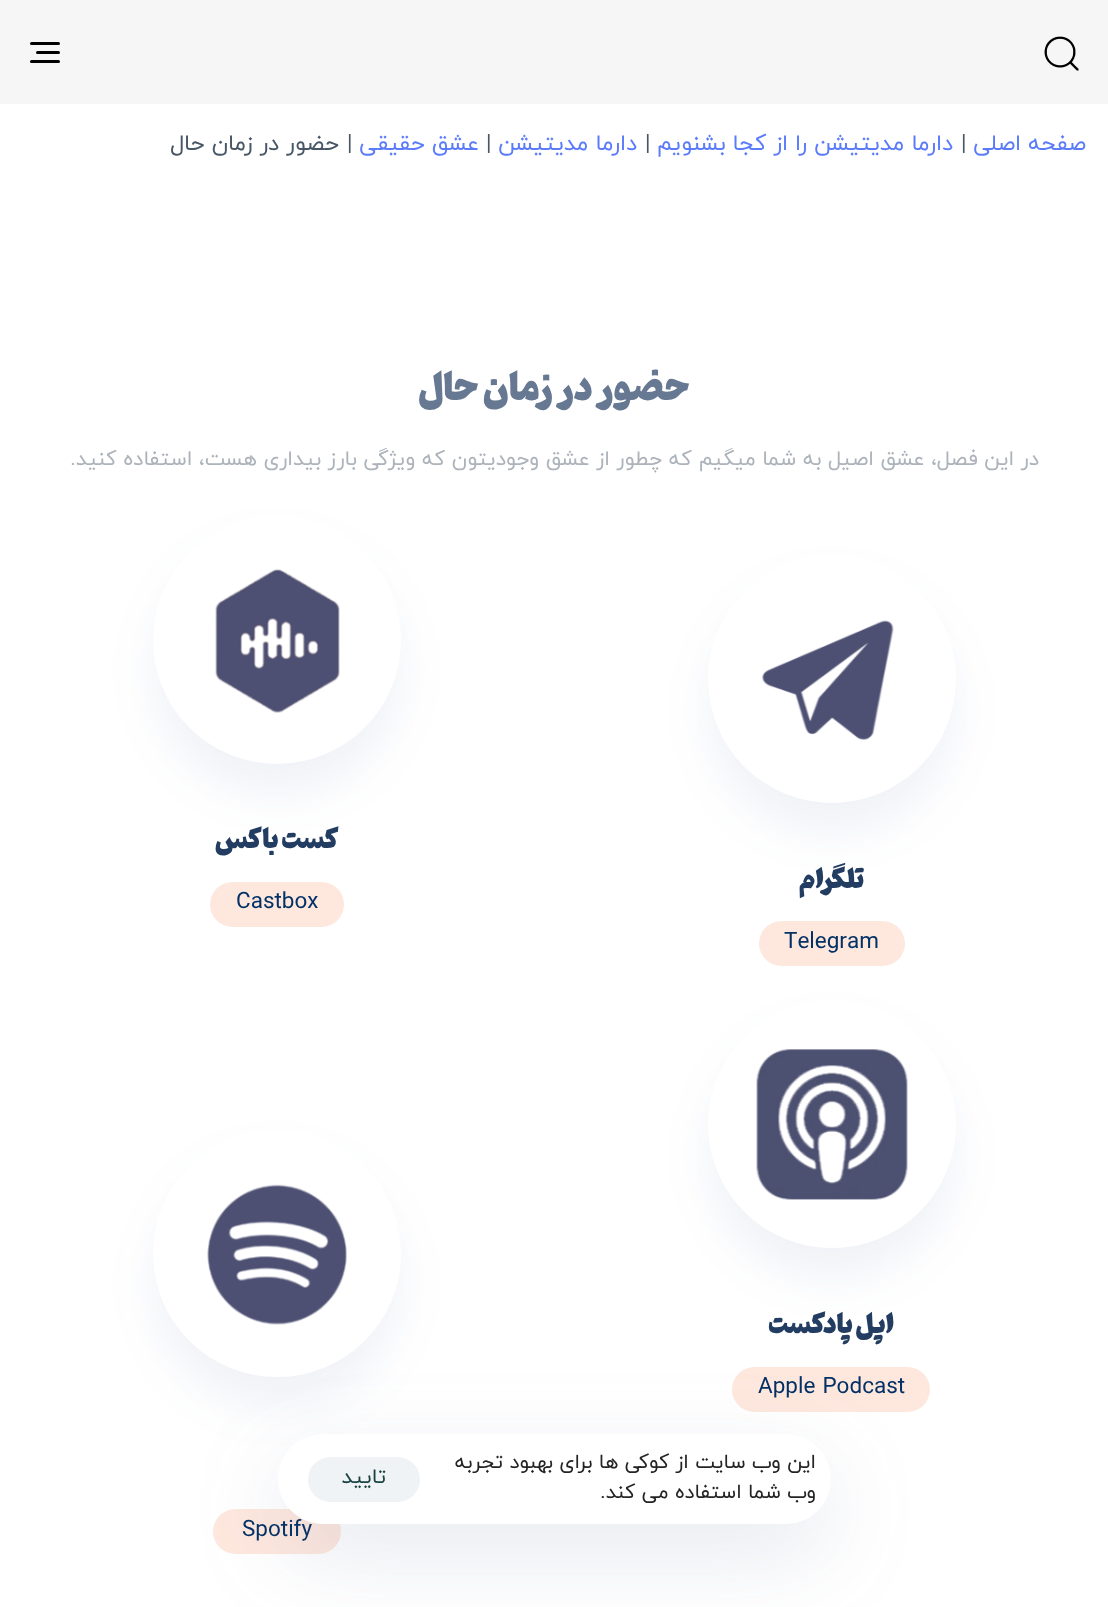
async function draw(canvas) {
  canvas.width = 1108
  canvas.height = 1607
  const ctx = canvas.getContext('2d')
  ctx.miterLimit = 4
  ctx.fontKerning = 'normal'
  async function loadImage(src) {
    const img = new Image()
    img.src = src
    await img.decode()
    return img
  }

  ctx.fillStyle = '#fff'
  ctx.fillRect(0, 0, 1108, 1607)
  ctx.fillStyle = '#f6f6f6'
  ctx.fillRect(0, 0, 1108, 104)
  ctx.drawImage(await loadImage('image0.png'), 1044, 36, 35, 35)
  ctx.fillStyle = '#000'
  ctx.beginPath()
  ctx.roundRect(30, 42, 30, 3, 1.5)
  ctx.fill()
  ctx.beginPath()
  ctx.roundRect(36, 51, 24, 3, 1.5)
  ctx.fill()
  ctx.beginPath()
  ctx.roundRect(30, 60, 30, 3, 1.5)
  ctx.fill()
  ctx.direction = 'rtl'
  ctx.font = '22.5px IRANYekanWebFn'
  ctx.fillStyle = '#5b7bfb'
  ctx.fillText('صفحه اصلی', 1086, 150)
  ctx.direction = 'ltr'
  ctx.fillStyle = '#485666'
  ctx.fillText('|', 961, 150)
  ctx.direction = 'rtl'
  ctx.fillStyle = '#5b7bfb'
  ctx.fillText('دارما مدیتیشن را از کجا بشنویم', 953, 150)
  ctx.direction = 'ltr'
  ctx.fillStyle = '#485666'
  ctx.fillText('|', 645, 150)
  ctx.direction = 'rtl'
  ctx.fillStyle = '#5b7bfb'
  ctx.fillText('دارما مدیتیشن', 637, 150)
  ctx.direction = 'ltr'
  ctx.fillStyle = '#485666'
  ctx.fillText('|', 486, 150)
  ctx.direction = 'rtl'
  ctx.fillStyle = '#5b7bfb'
  ctx.fillText('عشق حقیقی', 479, 150)
  ctx.direction = 'ltr'
  ctx.fillStyle = '#485666'
  ctx.fillText('|', 347, 150)
  ctx.direction = 'rtl'
  ctx.fillText('حضور در زمان حال', 339, 150)
  ctx.font = '900 42px "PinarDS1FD"'
  ctx.fillStyle = '#667892'
  ctx.fillText('حضور در زمان حال', 690, 400)
  ctx.font = '21px IRANYekanWebFn'
  ctx.fillStyle = '#adb3bb'
  ctx.fillText('در این فصل، عشق اصیل به شما میگیم که چطور از عشق وجودیتون که ویژگی بارز بیداری هست، استفاده کنید.', 1039, 465)
  ctx.fillStyle = '#415e9414'
  ctx.filter = 'blur(22.5px)'
  ctx.beginPath()
  ctx.roundRect(708, 585, 248, 248, 124)
  ctx.fill()
  ctx.filter = 'none'
  ctx.fillStyle = '#fff'
  ctx.beginPath()
  ctx.arc(832, 679, 124, 0, 2 * Math.PI)
  ctx.fill()
  ctx.drawImage(await loadImage('image1.png'), 762, 620, 132, 120)
  ctx.font = '900 30px "PinarDS1FD"'
  ctx.fillStyle = '#233d62'
  ctx.fillText('تلگرام', 864, 888)
  ctx.fillStyle = '#fee8de'
  ctx.beginPath()
  ctx.roundRect(759, 921, 146, 45, 22.5)
  ctx.fill()
  ctx.direction = 'ltr'
  ctx.font = '22.5px IRANYekanWebFn'
  ctx.fillStyle = '#033165'
  ctx.fillText('Telegram', 784, 948)
  ctx.fillStyle = '#415e9414'
  ctx.filter = 'blur(22.5px)'
  ctx.beginPath()
  ctx.roundRect(153, 546, 248, 248, 124)
  ctx.fill()
  ctx.filter = 'none'
  ctx.fillStyle = '#fff'
  ctx.beginPath()
  ctx.arc(277, 640, 124, 0, 2 * Math.PI)
  ctx.fill()
  ctx.drawImage(await loadImage('image2.png'), 215, 569, 125, 144)
  ctx.direction = 'rtl'
  ctx.font = '900 30px "PinarDS1FD"'
  ctx.fillStyle = '#233d62'
  ctx.fillText('کست باکس', 339, 848)
  ctx.fillStyle = '#fee8de'
  ctx.beginPath()
  ctx.roundRect(210, 882, 134, 45, 22.5)
  ctx.fill()
  ctx.direction = 'ltr'
  ctx.font = '22.5px IRANYekanWebFn'
  ctx.fillStyle = '#033165'
  ctx.fillText('Castbox', 236, 908)
  ctx.fillStyle = '#415e9414'
  ctx.filter = 'blur(22.5px)'
  ctx.beginPath()
  ctx.roundRect(708, 1031, 248, 247, 123.5)
  ctx.fill()
  ctx.filter = 'none'
  ctx.fillStyle = '#fff'
  ctx.beginPath()
  ctx.roundRect(708, 1001, 248, 247, 123.5)
  ctx.fill()
  ctx.drawImage(await loadImage('image3.png'), 756, 1049, 152, 151)
  ctx.direction = 'rtl'
  ctx.font = '900 30px "PinarDS1FD"'
  ctx.fillStyle = '#233d62'
  ctx.fillText('اپل پادکست', 894, 1333)
  ctx.fillStyle = '#fee8de'
  ctx.beginPath()
  ctx.roundRect(732, 1367, 198, 45, 22.5)
  ctx.fill()
  ctx.direction = 'ltr'
  ctx.font = '22.5px IRANYekanWebFn'
  ctx.fillStyle = '#033165'
  ctx.fillText('Apple Podcast', 758, 1393)
  ctx.fillStyle = '#415e9414'
  ctx.filter = 'blur(22.5px)'
  ctx.beginPath()
  ctx.roundRect(153, 1160, 248, 247, 123.5)
  ctx.fill()
  ctx.filter = 'none'
  ctx.fillStyle = '#fff'
  ctx.beginPath()
  ctx.roundRect(153, 1130, 248, 247, 123.5)
  ctx.fill()
  ctx.drawImage(await loadImage('image4.png'), 207, 1184, 140, 141)
  ctx.fillStyle = '#fee8de'
  ctx.beginPath()
  ctx.roundRect(213, 1509, 128, 45, 22.5)
  ctx.fill()
  ctx.fillStyle = '#033165'
  ctx.fillText('Spotify', 242, 1536)
  ctx.fillStyle = '#5c6b9526'
  ctx.filter = 'blur(45px)'
  ctx.beginPath()
  ctx.roundRect(278, 1464, 553, 90, 45)
  ctx.fill()
  ctx.filter = 'none'
  ctx.fillStyle = '#fff'
  ctx.beginPath()
  ctx.roundRect(278, 1434, 553, 90, 45)
  ctx.fill()
  ctx.direction = 'rtl'
  ctx.font = '20.25px IRANYekanWebFn'
  ctx.fillStyle = '#242424'
  ctx.fillText('این وب سایت از کوکی ها برای بهبود تجربه', 816, 1468)
  ctx.fillText('وب شما استفاده می کند.', 816, 1498)
  ctx.fillStyle = '#eff3f5'
  ctx.beginPath()
  ctx.roundRect(308, 1457, 112, 45, 22.5)
  ctx.fill()
  ctx.font = '21px IRANYekanWebFn'
  ctx.fillStyle = '#184341'
  ctx.fillText('تایید', 386, 1483)
}

draw(document.querySelector('canvas'))
